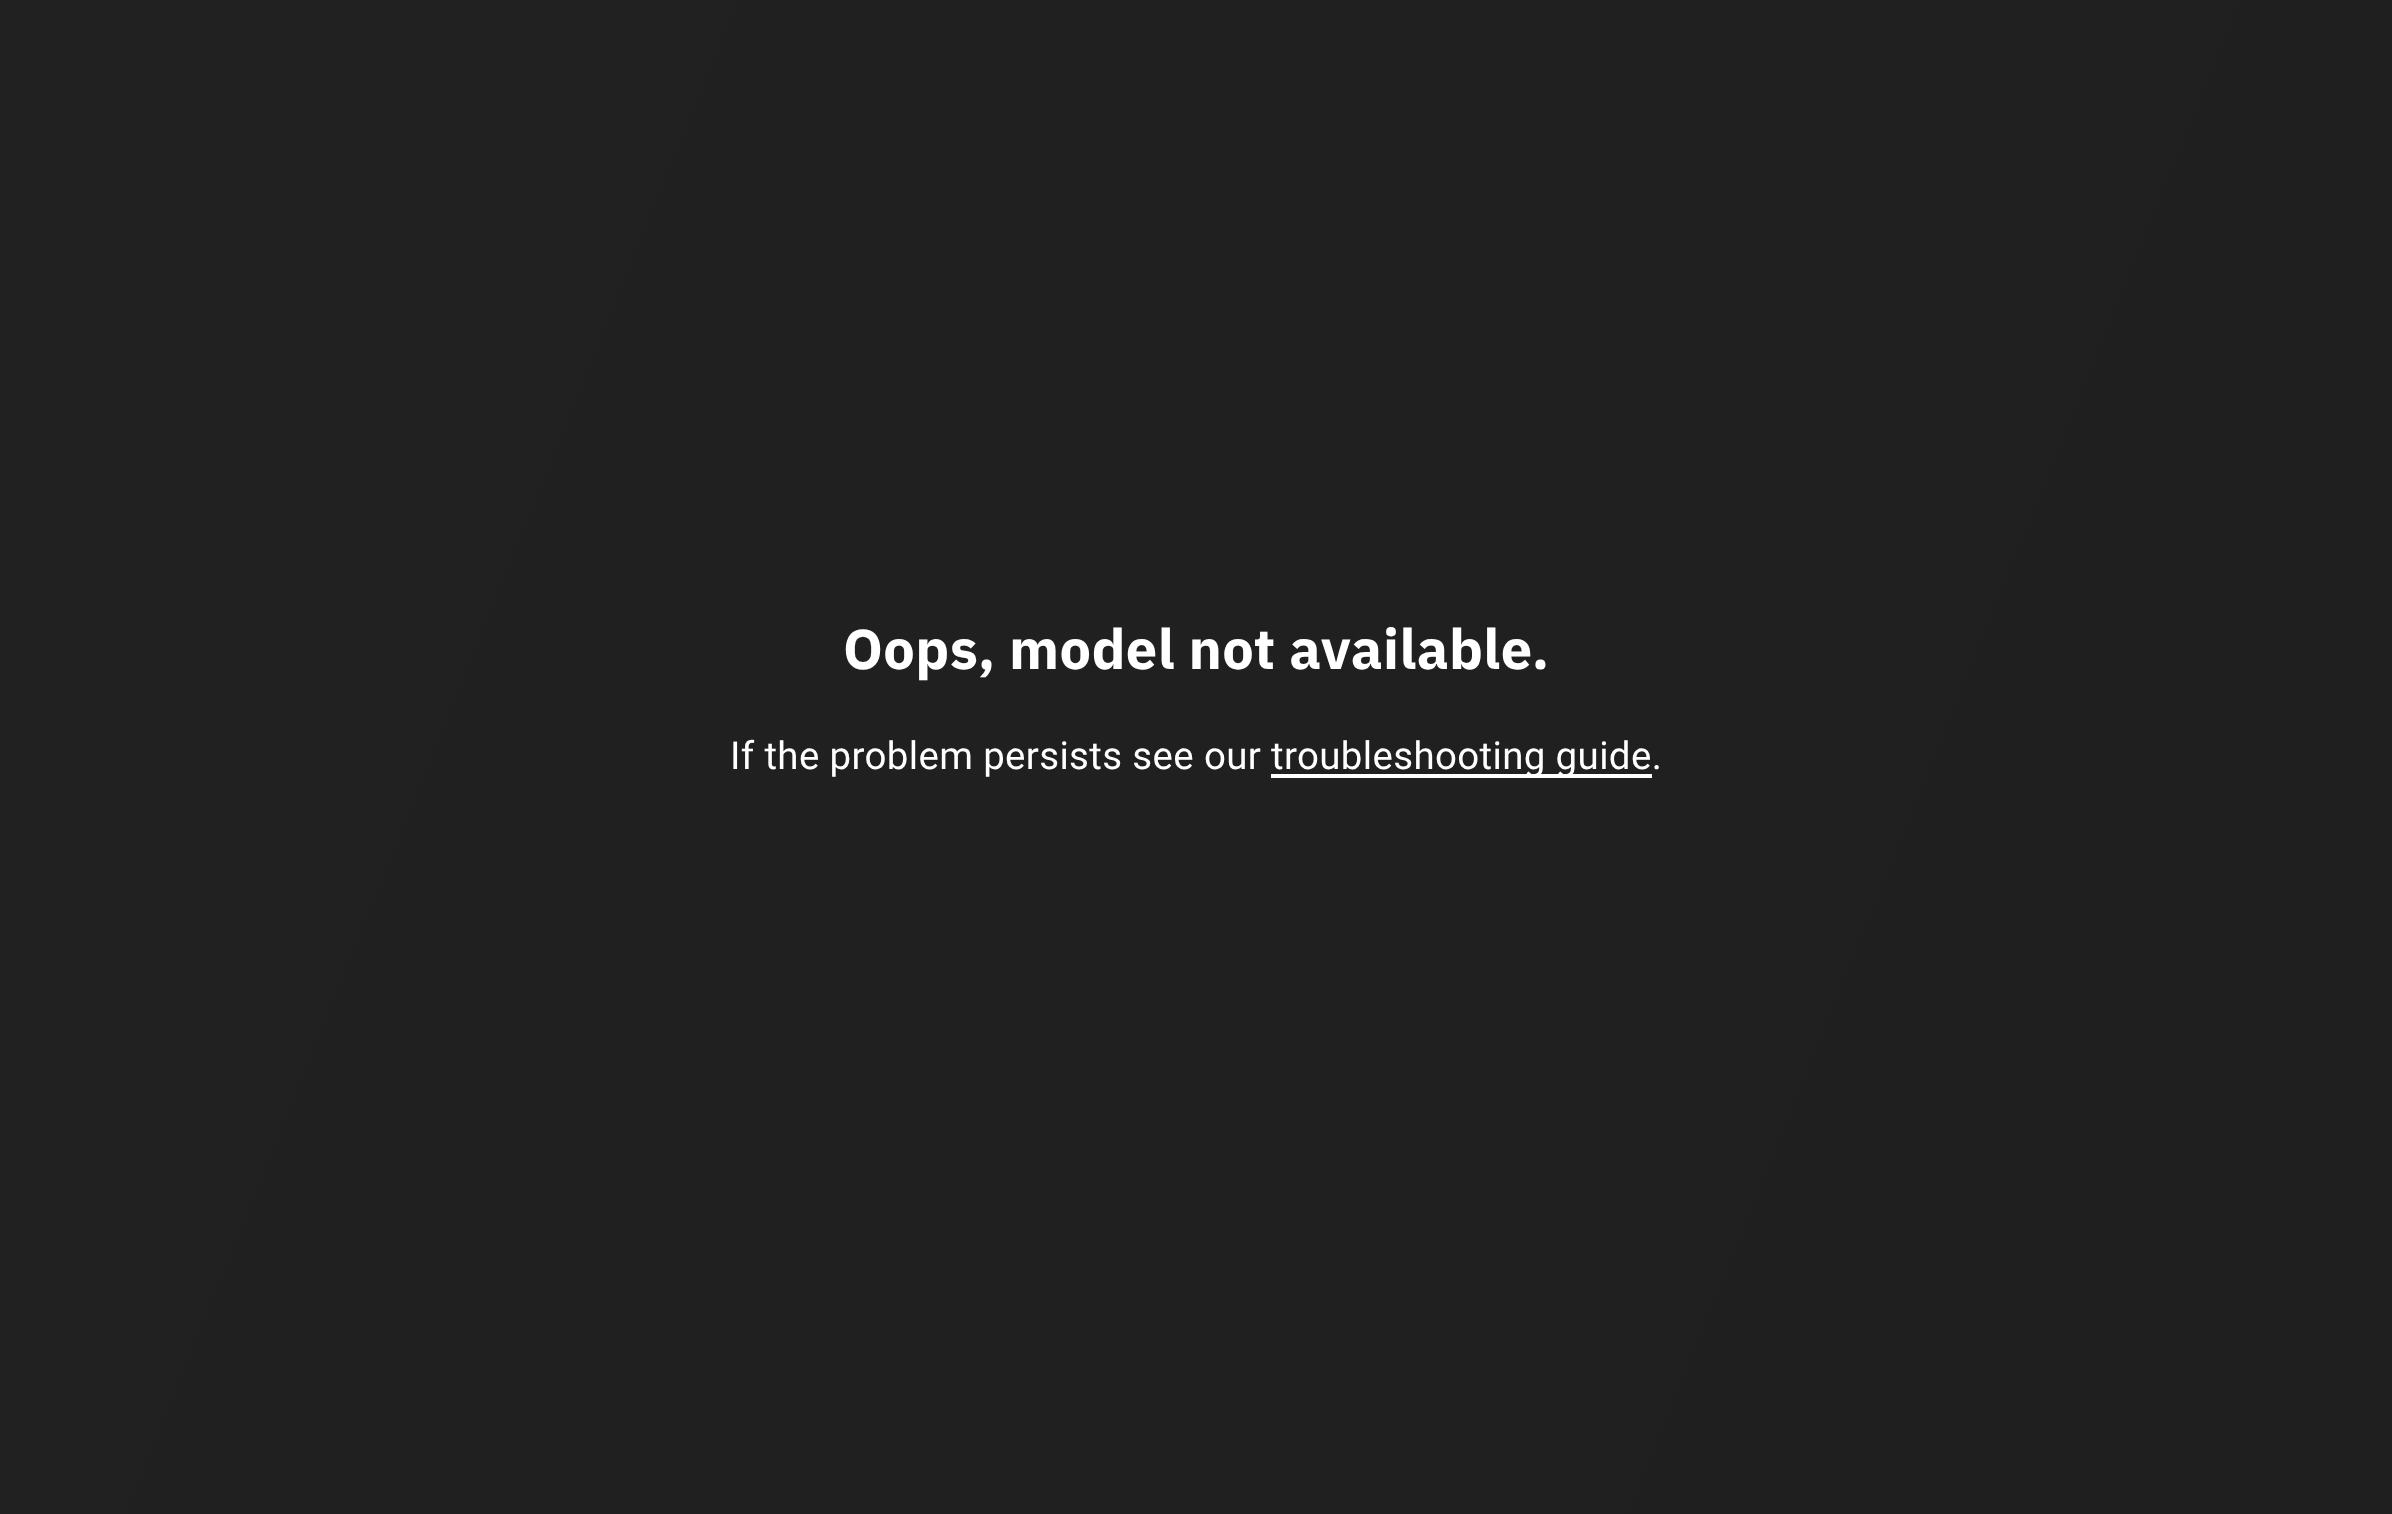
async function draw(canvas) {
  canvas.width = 2392
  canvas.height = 1514
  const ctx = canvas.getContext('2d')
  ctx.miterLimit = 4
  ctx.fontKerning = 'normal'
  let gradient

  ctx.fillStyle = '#fff'
  ctx.fillRect(0, 0, 2392, 1514)
  gradient = ctx.createLinearGradient(-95, 236, 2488, 1280)
  gradient.addColorStop(0, '#212121')
  gradient.addColorStop(1, '#1f1f1f')
  ctx.fillStyle = gradient
  ctx.fillRect(0, 0, 2392, 1514)
  ctx.letterSpacing = '0.35px'
  ctx.font = 'bold 56px IBM Plex Sans'
  ctx.fillStyle = '#fff'
  ctx.fillText('Oops, model not available.', 843, 669)
  ctx.font = '38.5px Roboto'
  ctx.fillText('If the problem persists see our', 730, 769)
  ctx.fillRect(1271, 774, 381, 4)
  ctx.fillText('troubleshooting guide.', 1271, 769)
}

draw(document.querySelector('canvas'))
